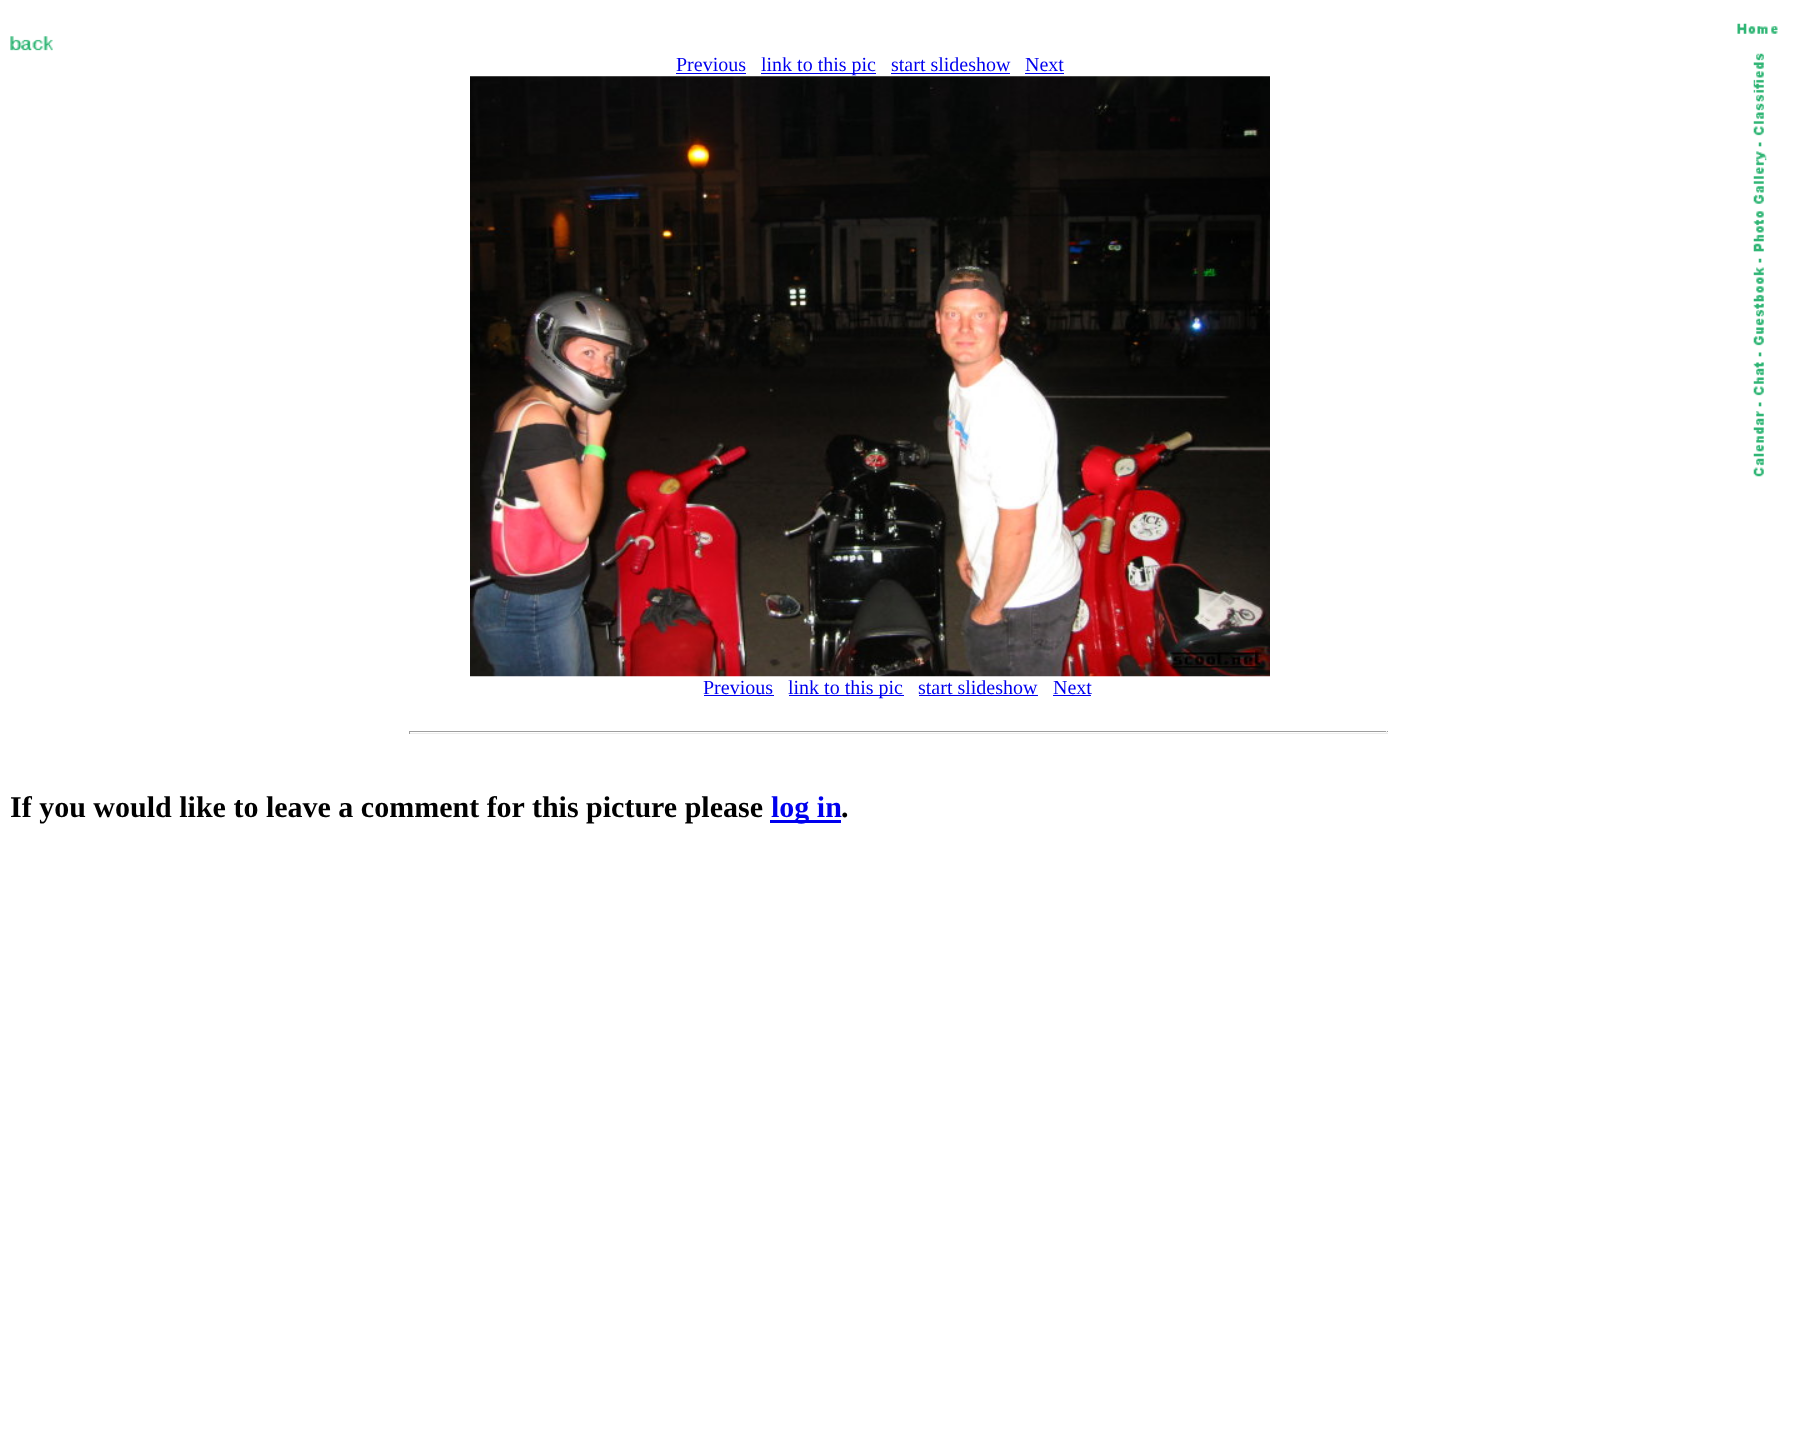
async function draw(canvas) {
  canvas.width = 1795
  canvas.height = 1444
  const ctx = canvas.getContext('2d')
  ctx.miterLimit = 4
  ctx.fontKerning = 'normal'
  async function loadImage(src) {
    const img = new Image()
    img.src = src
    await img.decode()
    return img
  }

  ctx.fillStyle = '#fff'
  ctx.fillRect(0, 0, 1795, 1444)
  ctx.drawImage(await loadImage('image0.png'), 10, 36, 43, 15)
  ctx.drawImage(await loadImage('image1.png'), 1737, 23, 41, 11)
  ctx.drawImage(await loadImage('image2.png'), 1753, 53, 14, 424)
  ctx.font = '20px Liberation Serif'
  ctx.fillStyle = '#00e'
  ctx.fillText('Previous', 676, 71)
  ctx.fillRect(676, 73, 70, 1)
  ctx.fillRect(761, 73, 115, 1)
  ctx.fillText('link to this pic', 761, 71)
  ctx.fillText('start slideshow', 891, 71)
  ctx.fillRect(891, 73, 119, 1)
  ctx.fillText('Next', 1025, 71)
  ctx.fillRect(1025, 73, 39, 1)
  ctx.drawImage(await loadImage('image3.png'), 470, 76, 800, 601)
  ctx.fillText('Previous', 703, 694)
  ctx.fillRect(704, 695, 70, 1)
  ctx.fillRect(789, 695, 115, 1)
  ctx.fillText('link to this pic', 788, 694)
  ctx.fillText('start slideshow', 918, 694)
  ctx.fillRect(919, 695, 119, 1)
  ctx.fillText('Next', 1053, 694)
  ctx.fillRect(1053, 695, 38, 1)
  ctx.fillStyle = '#9f9f9f'
  ctx.fillRect(409, 731, 979, 1)
  ctx.fillStyle = '#eee'
  ctx.fillRect(1386, 731, 1, 3)
  ctx.fillRect(409, 733, 979, 1)
  ctx.fillStyle = '#9f9f9f'
  ctx.fillRect(409, 731, 1, 3)
  ctx.font = 'bold 30px Liberation Serif'
  ctx.fillStyle = '#000'
  ctx.fillText('If you would like to leave a comment for this picture please', 10, 817)
  ctx.fillStyle = '#00e'
  ctx.fillRect(770, 820, 71, 3)
  ctx.fillText('log in', 771, 817)
  ctx.fillStyle = '#000'
  ctx.fillText('.', 841, 817)
}

draw(document.querySelector('canvas'))
